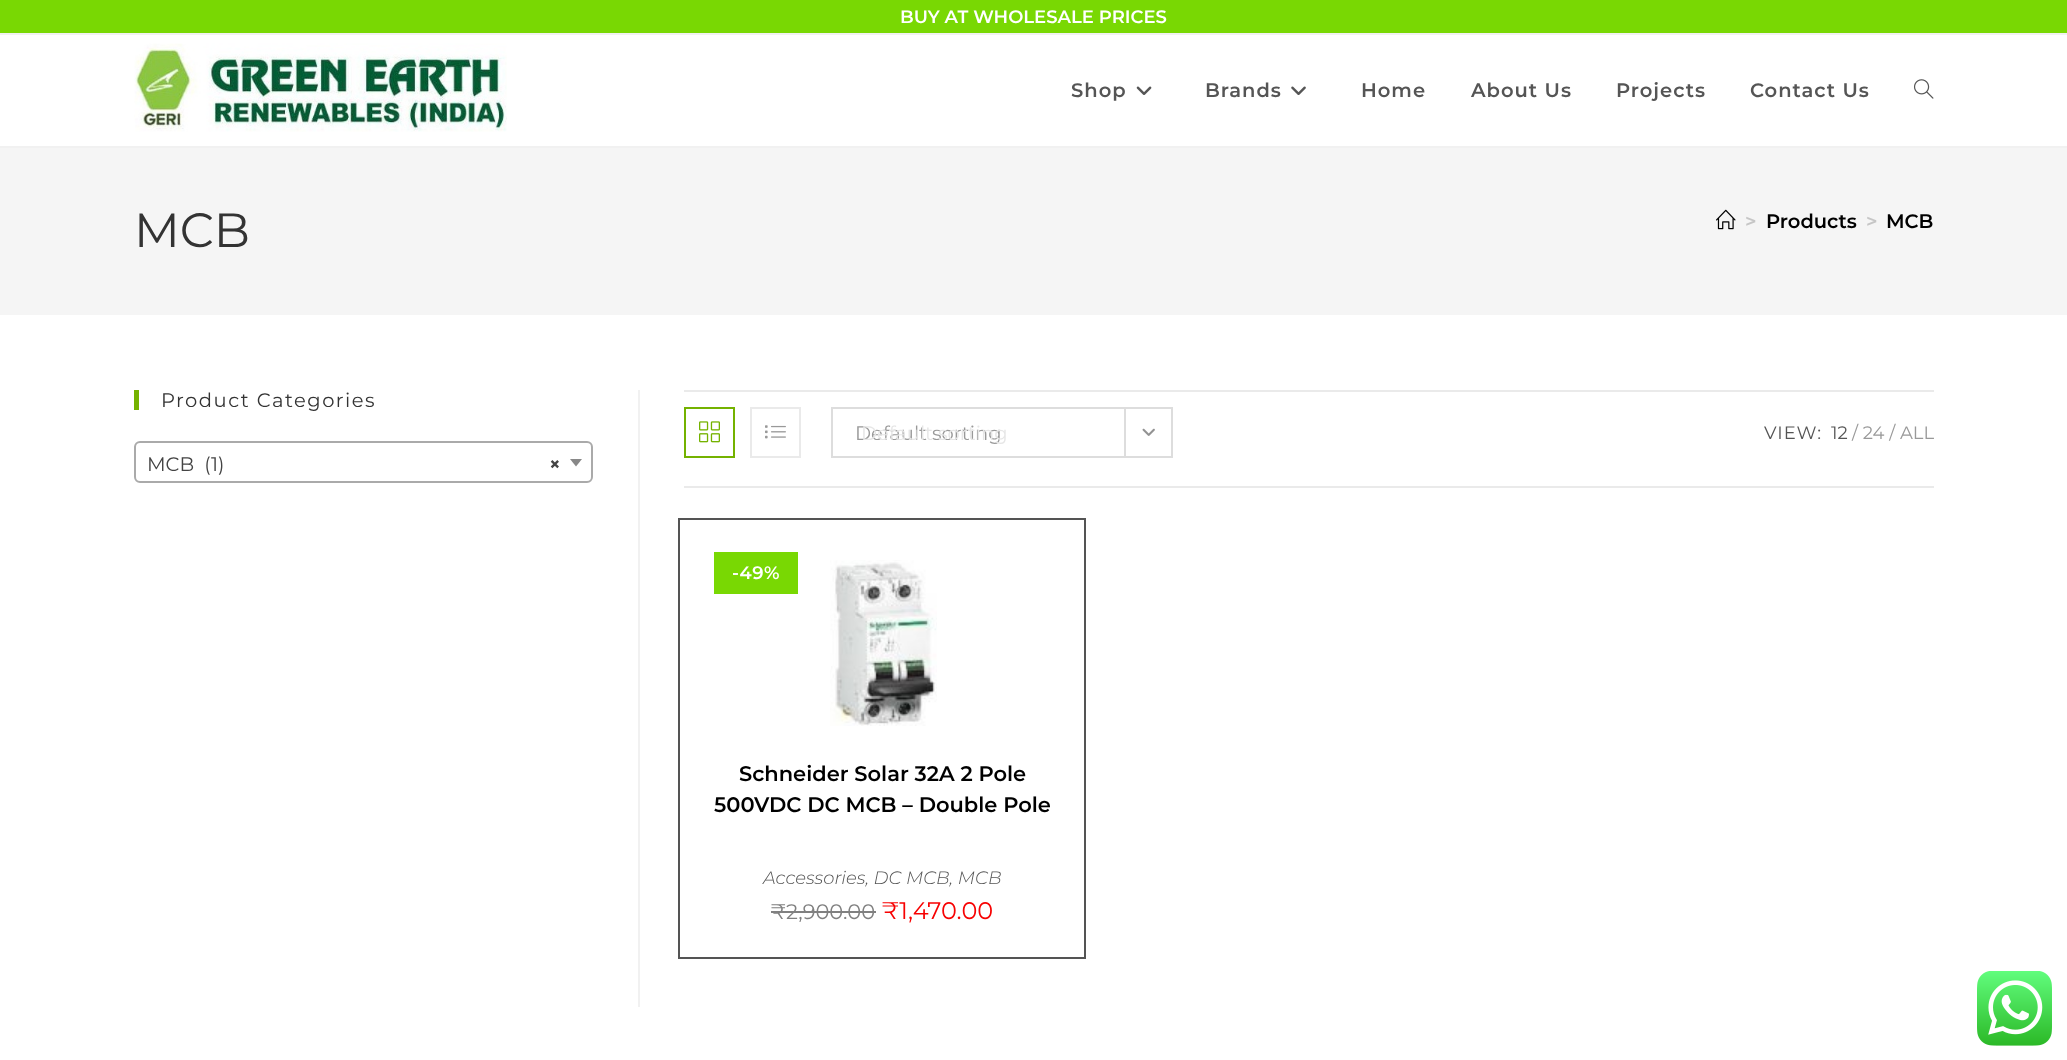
async function draw(canvas) {
  canvas.width = 2067
  canvas.height = 1060
  const ctx = canvas.getContext('2d')
  ctx.miterLimit = 4
  ctx.fontKerning = 'normal'
  async function loadImage(src) {
    const img = new Image()
    img.src = src
    await img.decode()
    return img
  }

  ctx.fillStyle = '#fff'
  ctx.fillRect(0, 0, 2067, 1060)
  ctx.fillStyle = '#79d803'
  ctx.fillRect(0, 0, 2067, 33)
  ctx.fillStyle = '#f1f1f1'
  ctx.fillRect(0, 33, 2067, 2)
  ctx.font = '600 18px Montserrat'
  ctx.fillStyle = '#fff'
  ctx.fillText('BUY AT WHOLESALE PRICES', 900, 23)
  ctx.fillStyle = '#f1f1f1'
  ctx.fillRect(0, 146, 2067, 2)
  ctx.drawImage(await loadImage('image0.png'), 134, 43, 373, 89)
  ctx.letterSpacing = '1px'
  ctx.font = '600 19.5px Montserrat'
  ctx.fillStyle = '#555'
  ctx.fillText('Shop', 1071, 97)
  ctx.drawImage(await loadImage('image1.png'), 1136, 86, 16, 9)
  ctx.fillText('Brands', 1205, 97)
  ctx.drawImage(await loadImage('image2.png'), 1291, 86, 15, 9)
  ctx.fillText('Home', 1361, 97)
  ctx.fillText('About Us', 1471, 97)
  ctx.fillText('Projects', 1616, 97)
  ctx.fillText('Contact Us', 1750, 97)
  ctx.drawImage(await loadImage('image3.png'), 1914, 79, 20, 20)
  ctx.fillStyle = '#f5f5f5'
  ctx.fillRect(0, 148, 2067, 167)
  ctx.letterSpacing = '0px'
  ctx.font = '48px Montserrat'
  ctx.fillStyle = '#333'
  ctx.fillText('MCB', 134, 247)
  ctx.drawImage(await loadImage('image4.png'), 1716, 209, 20, 21)
  ctx.font = '600 19.5px Montserrat'
  ctx.fillStyle = '#c6c6c6'
  ctx.fillText('>', 1745, 228)
  ctx.fillStyle = '#000'
  ctx.fillText('Products', 1766, 228)
  ctx.fillStyle = '#c6c6c6'
  ctx.fillText('>', 1866, 228)
  ctx.fillStyle = '#000'
  ctx.fillText('MCB', 1886, 228)
  ctx.fillStyle = '#74b200'
  ctx.fillRect(134, 390, 5, 20)
  ctx.letterSpacing = '1.5px'
  ctx.font = '19.5px Montserrat'
  ctx.fillStyle = '#333'
  ctx.fillText('Product Categories', 161, 407)
  ctx.beginPath()
  ctx.roundRect(135, 442, 457, 40, 5)
  ctx.strokeStyle = '#aaa'
  ctx.lineWidth = 2
  ctx.stroke()
  ctx.letterSpacing = '0px'
  ctx.fillStyle = '#444'
  ctx.fillText('MCB  (1)', 147, 471)
  ctx.font = 'bold 19.5px Montserrat'
  ctx.fillText('×', 549, 471)
  ctx.fillStyle = '#888'
  ctx.beginPath()
  ctx.moveTo(570, 459)
  ctx.lineTo(582, 459)
  ctx.lineTo(576, 466.5)
  ctx.closePath()
  ctx.fill()
  ctx.fillStyle = '#f1f1f1'
  ctx.fillRect(638, 390, 2, 617)
  ctx.fillStyle = '#eaeaea'
  ctx.fillRect(684, 390, 1250, 2)
  ctx.fillRect(684, 486, 1250, 2)
  ctx.strokeStyle = '#74b200'
  ctx.strokeRect(685, 408, 49, 49)
  ctx.drawImage(await loadImage('image5.png'), 699, 421, 21, 22)
  ctx.strokeStyle = '#eaeaea'
  ctx.strokeRect(751, 408, 49, 49)
  ctx.drawImage(await loadImage('image6.png'), 765, 425, 21, 14)
  ctx.strokeStyle = '#ddd'
  ctx.strokeRect(832, 408, 340, 49)
  ctx.font = '19.5px Montserrat'
  ctx.fillStyle = '#999'
  ctx.fillText('Default sorting', 855, 440)
  ctx.fillStyle = '#ddd'
  ctx.fillRect(1124, 408, 2, 48)
  ctx.drawImage(await loadImage('image7.png'), 1142, 428, 13, 8)
  ctx.fillStyle = '#e6e6e6'
  ctx.fillText('Default sorting', 861, 440)
  ctx.letterSpacing = '1px'
  ctx.font = '18px Montserrat'
  ctx.fillStyle = '#555'
  ctx.fillText('VIEW:', 1764, 439)
  ctx.letterSpacing = '0px'
  ctx.fillText('12', 1831, 439)
  ctx.fillStyle = '#999'
  ctx.fillText('/ 24 / ALL', 1852, 439)
  ctx.strokeStyle = '#545454'
  ctx.strokeRect(679, 519, 406, 439)
  ctx.fillStyle = '#79d803'
  ctx.fillRect(714, 552, 84, 42)
  ctx.letterSpacing = '0.5px'
  ctx.font = '600 18px Montserrat'
  ctx.fillStyle = '#fff'
  ctx.fillText('-49%', 732, 579)
  ctx.drawImage(await loadImage('image8.png'), 830, 560, 107, 166)
  ctx.letterSpacing = '0px'
  ctx.font = '600 21px Montserrat'
  ctx.fillStyle = '#000'
  ctx.fillText('Schneider Solar 32A 2 Pole', 739, 781)
  ctx.fillText('500VDC DC MCB – Double Pole', 714, 812)
  ctx.font = 'italic 300 18px Montserrat'
  ctx.fillStyle = '#555'
  ctx.fillText('Accessories, DC MCB, MCB', 763, 884)
  ctx.font = '21px Montserrat'
  ctx.fillStyle = '#808080'
  ctx.fillText('₹2,900.00', 771, 919)
  ctx.fillRect(771, 911, 105, 2)
  ctx.font = '24px Montserrat'
  ctx.fillStyle = '#f70202'
  ctx.fillText('₹1,470.00', 882, 919)
  ctx.drawImage(await loadImage('image9.png'), 1977, 971, 75, 75)
}

draw(document.querySelector('canvas'))
